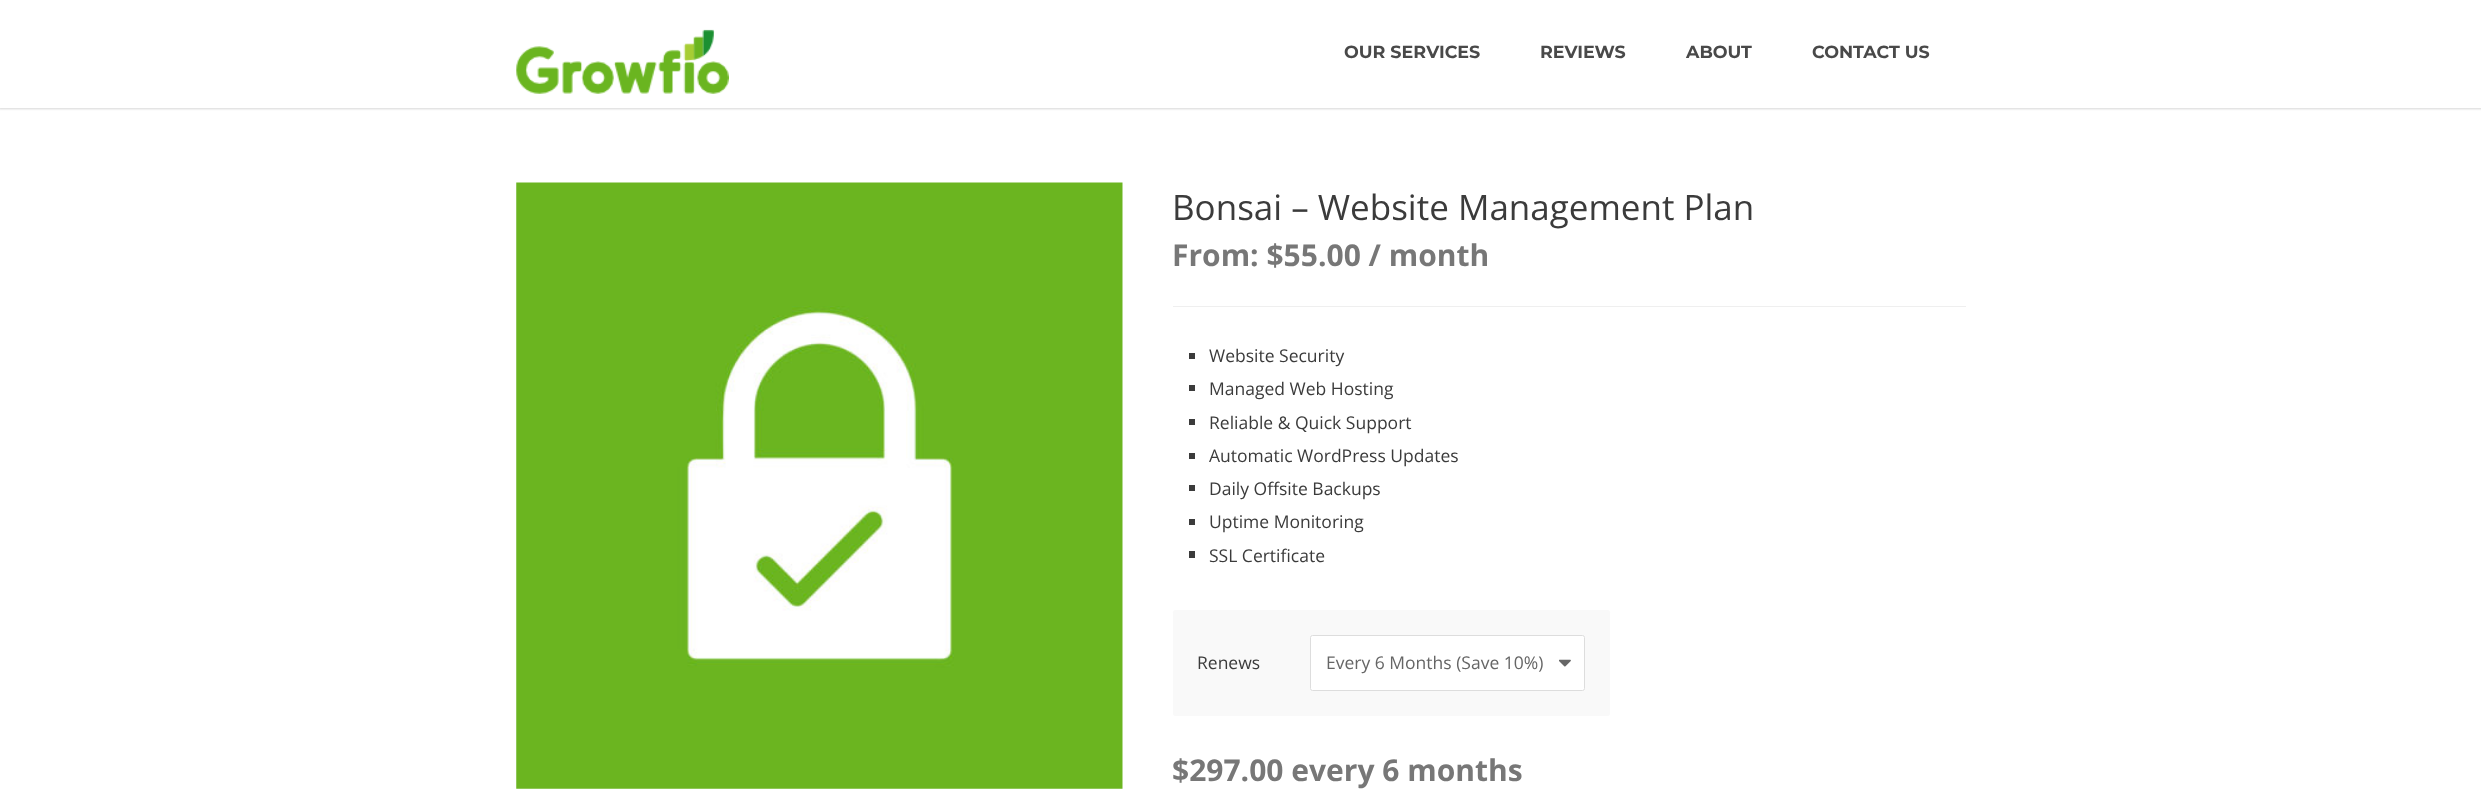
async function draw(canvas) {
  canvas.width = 2481
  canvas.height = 803
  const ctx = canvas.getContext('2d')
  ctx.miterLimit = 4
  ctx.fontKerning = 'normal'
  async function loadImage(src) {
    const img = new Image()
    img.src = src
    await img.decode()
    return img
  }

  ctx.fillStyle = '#fff'
  ctx.fillRect(0, 0, 2481, 803)
  ctx.fillStyle = '#00000029'
  ctx.filter = 'blur(1px)'
  ctx.beginPath()
  ctx.rect(-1, -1, 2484, 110)
  ctx.fill()
  ctx.filter = 'none'
  ctx.fillStyle = '#fff'
  ctx.fillRect(0, 0, 2481, 108)
  ctx.drawImage(await loadImage('image0.png'), 516, 29, 213, 65)
  ctx.font = 'bold 17.5px Montserrat'
  ctx.fillStyle = '#494949'
  ctx.fillText('OUR SERVICES', 1344, 58)
  ctx.fillText('REVIEWS', 1540, 58)
  ctx.fillText('ABOUT', 1686, 58)
  ctx.fillText('CONTACT US', 1812, 58)
  ctx.drawImage(await loadImage('image1.png'), 516, 182, 607, 607)
  ctx.font = '35px Open Sans'
  ctx.fillStyle = '#3b3b3b'
  ctx.fillText('Bonsai – Website Management Plan', 1172, 220)
  ctx.fillStyle = '#efefef'
  ctx.fillRect(1173, 306, 793, 1)
  ctx.font = 'bold 30px Open Sans'
  ctx.fillStyle = '#777'
  ctx.fillText('From: $55.00 / month', 1172, 266)
  ctx.fillStyle = '#3b3b3b'
  ctx.fillRect(1189, 353, 6, 6)
  ctx.font = '17.5px Open Sans'
  ctx.fillText('Website Security', 1209, 362)
  ctx.fillRect(1189, 385, 6, 6)
  ctx.fillText('Managed Web Hosting', 1209, 395)
  ctx.fillRect(1189, 419, 6, 6)
  ctx.fillText('Reliable & Quick Support', 1209, 429)
  ctx.fillRect(1189, 453, 6, 6)
  ctx.fillText('Automatic WordPress Updates', 1209, 462)
  ctx.fillRect(1189, 485, 6, 6)
  ctx.fillText('Daily Offsite Backups', 1209, 495)
  ctx.fillRect(1189, 519, 6, 6)
  ctx.fillText('Uptime Monitoring', 1209, 528)
  ctx.fillRect(1189, 551, 6, 7)
  ctx.fillText('SSL Certificate', 1209, 562)
  ctx.fillStyle = '#f9f9f9'
  ctx.beginPath()
  ctx.roundRect(1173, 610, 437, 106, 2.5)
  ctx.fill()
  ctx.fillStyle = '#3b3b3b'
  ctx.fillText('Renews', 1197, 669)
  ctx.fillStyle = '#fff'
  ctx.beginPath()
  ctx.roundRect(1310, 635, 275, 56, 2.5)
  ctx.fill()
  ctx.drawImage(await loadImage('image2.png'), 1559, 659, 12, 8)
  ctx.beginPath()
  ctx.roundRect(1310.5, 635.5, 274, 55, 2)
  ctx.strokeStyle = '#ddd'
  ctx.stroke()
  ctx.fillStyle = '#666'
  ctx.fillText('Every 6 Months (Save 10%)', 1326, 669)
  ctx.font = 'bold 30px Open Sans'
  ctx.fillStyle = '#777'
  ctx.fillText('$297.00 every 6 months', 1172, 781)
}

draw(document.querySelector('canvas'))
